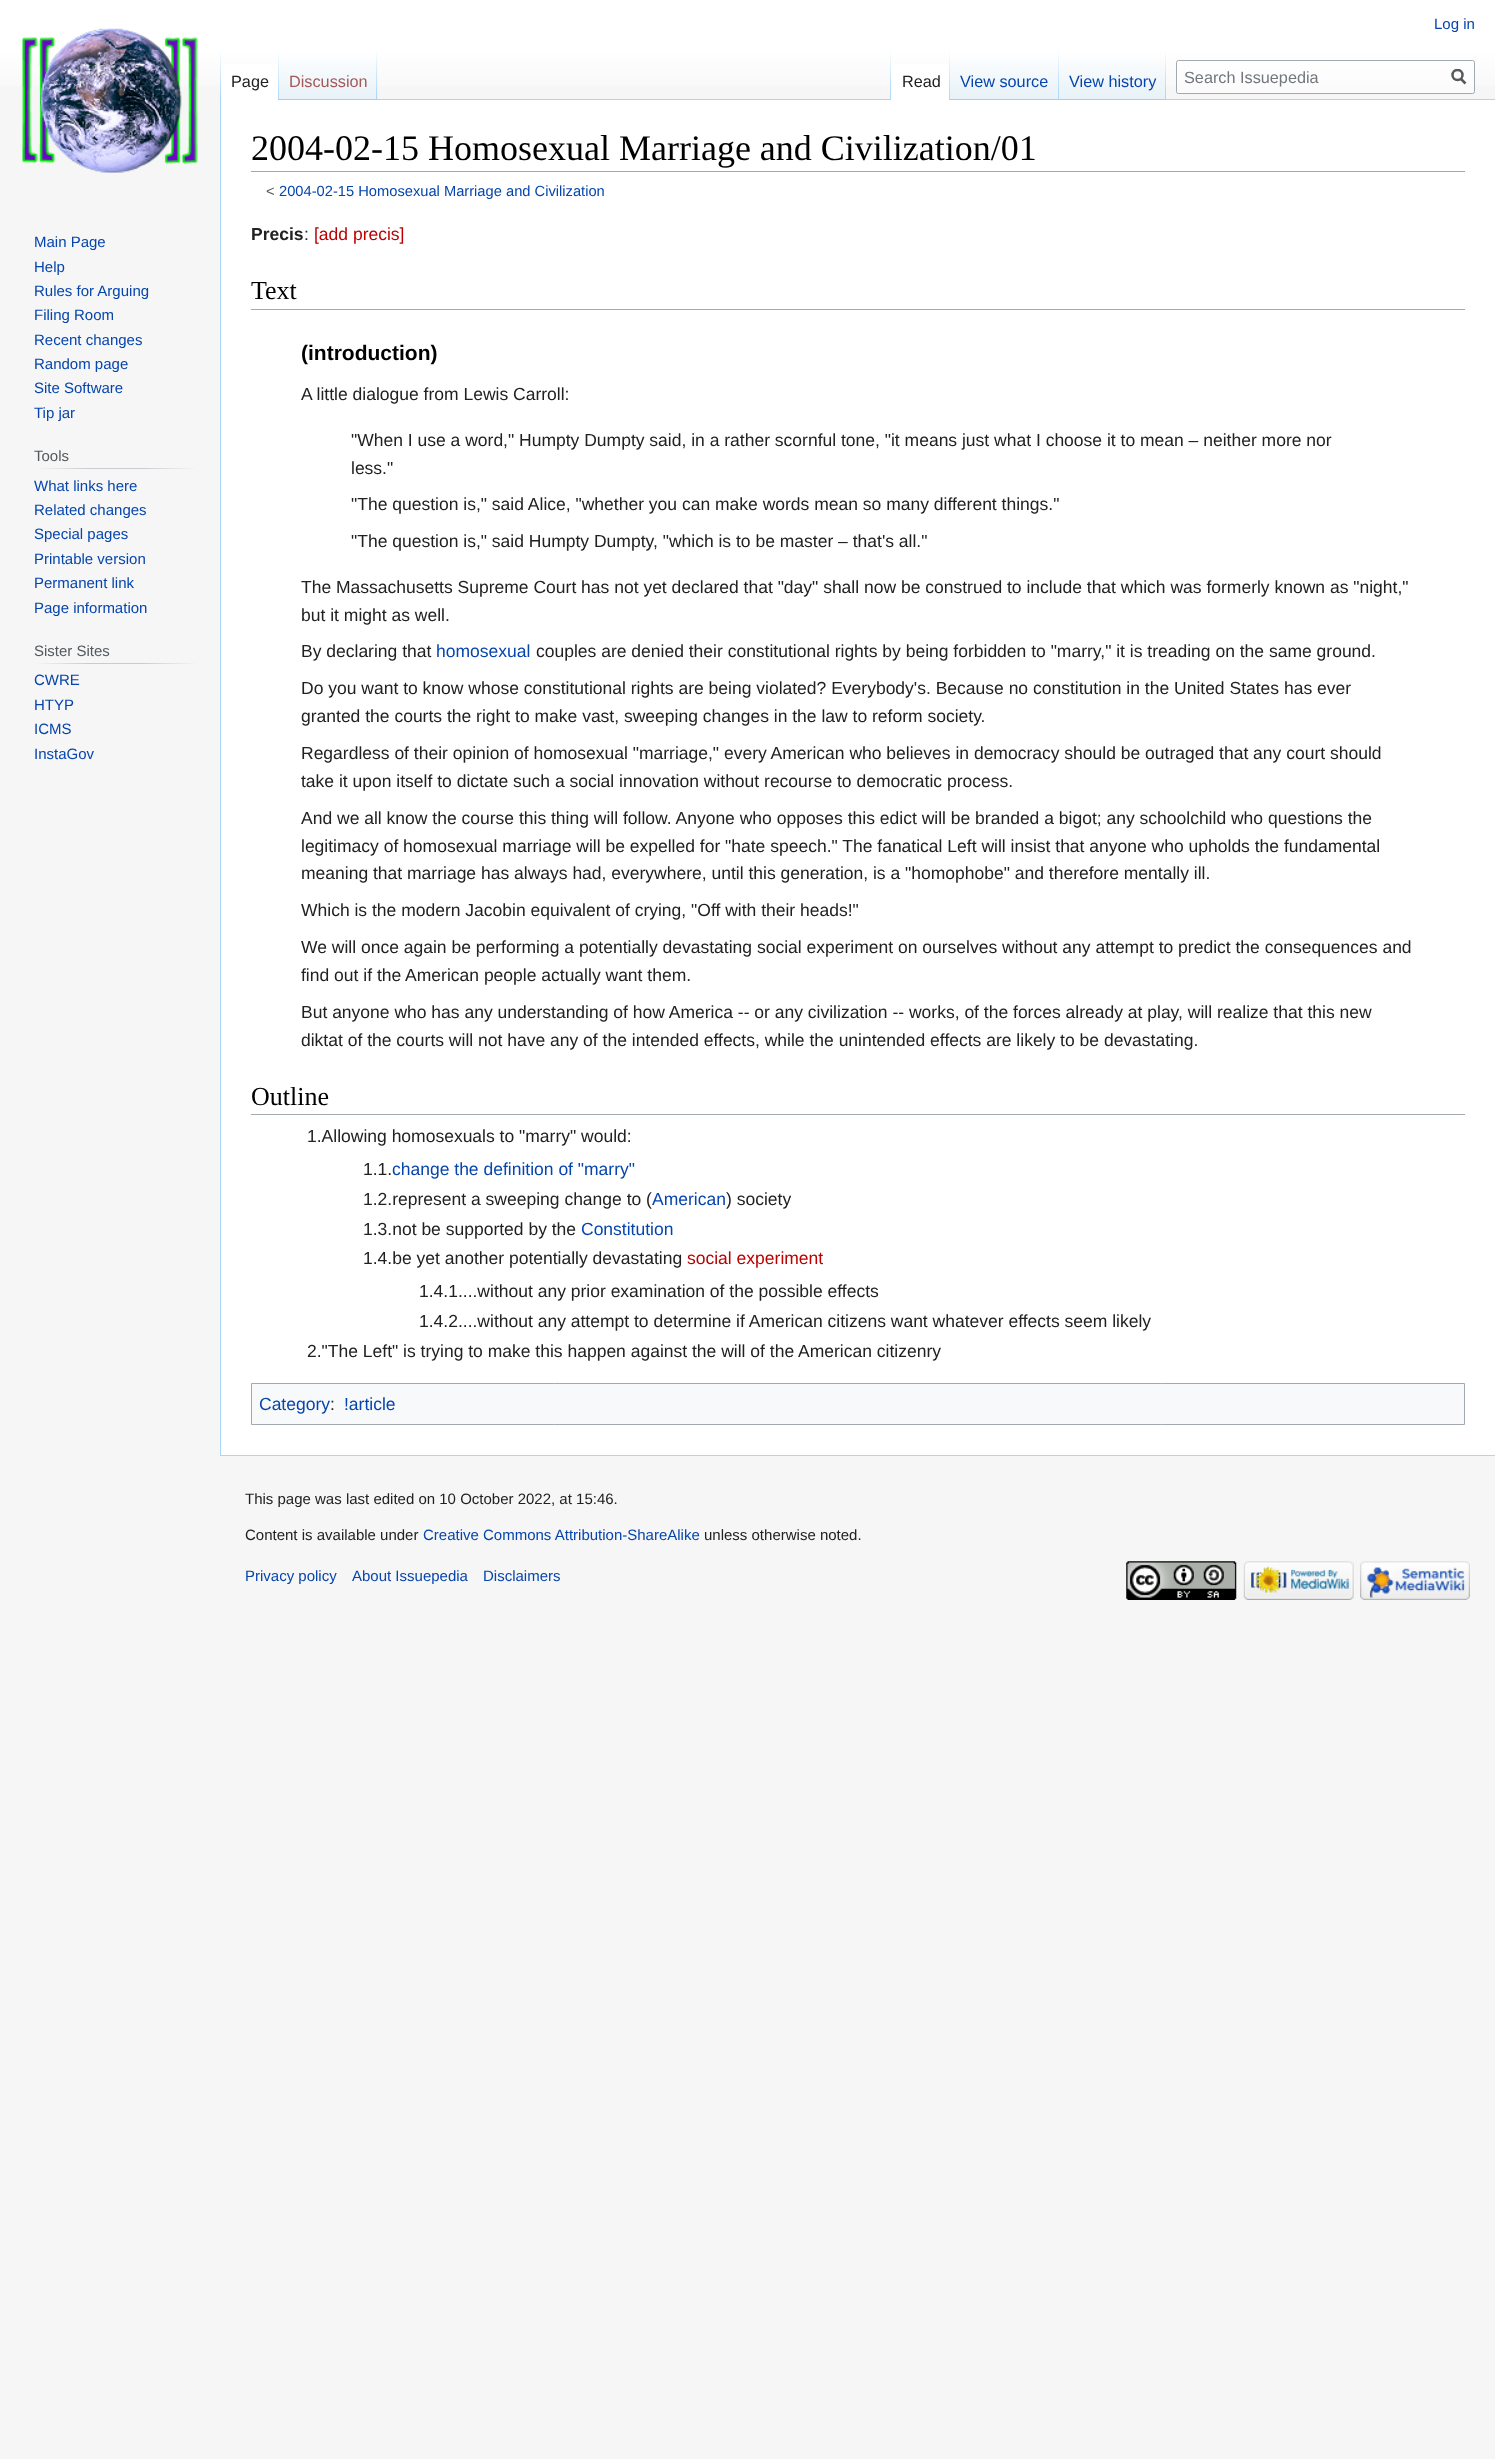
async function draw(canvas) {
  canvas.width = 1495
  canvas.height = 2459
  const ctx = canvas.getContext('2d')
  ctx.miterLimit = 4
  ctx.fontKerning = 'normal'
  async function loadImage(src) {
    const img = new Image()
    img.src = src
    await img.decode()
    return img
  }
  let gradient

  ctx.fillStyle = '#f6f6f6'
  ctx.fillRect(0, 0, 1495, 2459)
  gradient = ctx.createLinearGradient(748, 0, 748, 100)
  gradient.addColorStop(0.5, '#fff')
  gradient.addColorStop(1, '#f6f6f6')
  ctx.fillStyle = gradient
  ctx.fillRect(0, 0, 1495, 86)
  ctx.font = '15px Liberation Sans'
  ctx.fillStyle = '#0645ad'
  ctx.fillText('Log in', 1434, 29)
  ctx.fillStyle = '#a7d7f9'
  ctx.fillRect(220, 1455, 1275, 1)
  ctx.fillRect(220, 99, 1, 1357)
  gradient = ctx.createLinearGradient(221, 50, 221, 100)
  gradient.addColorStop(0, '#a7d7f900')
  gradient.addColorStop(1, '#a7d7f9')
  ctx.fillStyle = gradient
  ctx.fillRect(220, 50, 1, 50)
  ctx.fillStyle = '#fff'
  ctx.fillRect(221, 64, 57, 36)
  gradient = ctx.createLinearGradient(278, 50, 278, 100)
  gradient.addColorStop(0, '#fff')
  gradient.addColorStop(1, '#a7d7f9')
  ctx.fillStyle = gradient
  ctx.fillRect(278, 50, 1, 50)
  ctx.font = '16.25px Liberation Sans'
  ctx.fillStyle = '#202122'
  ctx.fillText('Page', 231, 87)
  gradient = ctx.createLinearGradient(328, 100, 328, 50)
  gradient.addColorStop(0, '#77c1f6')
  gradient.addColorStop(0.03, '#e8f2f8')
  gradient.addColorStop(1, '#fff')
  ctx.fillStyle = gradient
  ctx.fillRect(279, 57, 99, 43)
  gradient = ctx.createLinearGradient(377, 50, 377, 100)
  gradient.addColorStop(0, '#a7d7f900')
  gradient.addColorStop(1, '#a7d7f9')
  ctx.fillStyle = gradient
  ctx.fillRect(376, 50, 1, 50)
  ctx.fillStyle = '#a55858'
  ctx.fillText('Discussion', 289, 87)
  ctx.fillStyle = '#a7d7f9'
  ctx.fillRect(378, 99, 1117, 1)
  gradient = ctx.createLinearGradient(891, 50, 891, 100)
  gradient.addColorStop(0, '#a7d7f900')
  gradient.addColorStop(1, '#a7d7f9')
  ctx.fillStyle = gradient
  ctx.fillRect(890, 50, 1, 50)
  ctx.fillStyle = '#fff'
  ctx.fillRect(891, 64, 58, 36)
  gradient = ctx.createLinearGradient(949, 50, 949, 100)
  gradient.addColorStop(0, '#fff')
  gradient.addColorStop(1, '#a7d7f9')
  ctx.fillStyle = gradient
  ctx.fillRect(949, 50, 1, 50)
  ctx.fillStyle = '#202122'
  ctx.fillText('Read', 902, 87)
  gradient = ctx.createLinearGradient(1004, 100, 1004, 50)
  gradient.addColorStop(0, '#77c1f6')
  gradient.addColorStop(0.03, '#e8f2f8')
  gradient.addColorStop(1, '#fff')
  ctx.fillStyle = gradient
  ctx.fillRect(950, 57, 109, 43)
  gradient = ctx.createLinearGradient(1058, 50, 1058, 100)
  gradient.addColorStop(0, '#a7d7f900')
  gradient.addColorStop(1, '#a7d7f9')
  ctx.fillStyle = gradient
  ctx.fillRect(1058, 50, 1, 50)
  ctx.fillStyle = '#0645ad'
  ctx.fillText('View source', 960, 87)
  gradient = ctx.createLinearGradient(1113, 100, 1113, 50)
  gradient.addColorStop(0, '#77c1f6')
  gradient.addColorStop(0.03, '#e8f2f8')
  gradient.addColorStop(1, '#fff')
  ctx.fillStyle = gradient
  ctx.fillRect(1059, 57, 107, 43)
  gradient = ctx.createLinearGradient(1166, 50, 1166, 100)
  gradient.addColorStop(0, '#a7d7f900')
  gradient.addColorStop(1, '#a7d7f9')
  ctx.fillStyle = gradient
  ctx.fillRect(1165, 50, 1, 50)
  ctx.fillStyle = '#0645ad'
  ctx.fillText('View history', 1069, 87)
  ctx.fillStyle = '#ffffff80'
  ctx.beginPath()
  ctx.roundRect(1176.5, 60.5, 298, 33, 2)
  ctx.fill()
  ctx.strokeStyle = '#a2a9b1'
  ctx.stroke()
  ctx.fillStyle = '#72777d'
  ctx.fillText('Search Issuepedia', 1184, 83)
  ctx.beginPath()
  ctx.moveTo(1465.5, 83.5)
  ctx.lineTo(1460.5, 78.5)
  ctx.strokeStyle = '#54595d'
  ctx.lineWidth = 2.5
  ctx.stroke()
  ctx.save()
  ctx.beginPath()
  ctx.rect(1451, 69, 15, 16)
  ctx.clip()
  ctx.beginPath()
  ctx.arc(1457.5, 75, 5, 0, 2 * Math.PI)
  ctx.stroke()
  ctx.restore()
  ctx.drawImage(await loadImage('image0.png'), 22, 28, 176, 145)
  ctx.font = '15px Liberation Sans'
  ctx.fillStyle = '#0645ad'
  ctx.fillText('Main Page', 34, 247)
  ctx.fillText('Help', 34, 272)
  ctx.fillText('Rules for Arguing', 34, 296)
  ctx.fillText('Filing Room', 34, 320)
  ctx.fillText('Recent changes', 34, 345)
  ctx.fillText('Random page', 34, 369)
  ctx.fillText('Site Software', 34, 393)
  ctx.fillText('Tip jar', 34, 418)
  gradient = ctx.createLinearGradient(34, 468, 198, 468)
  gradient.addColorStop(0, '#f6f6f6')
  gradient.addColorStop(0.33, '#c8ccd1')
  gradient.addColorStop(0.66, '#c8ccd1')
  gradient.addColorStop(1, '#f6f6f6')
  ctx.fillStyle = gradient
  ctx.fillRect(34, 468, 164, 1)
  ctx.fillStyle = '#54595d'
  ctx.fillText('Tools', 34, 461)
  ctx.fillStyle = '#0645ad'
  ctx.fillText('What links here', 34, 491)
  ctx.fillText('Related changes', 34, 515)
  ctx.fillText('Special pages', 34, 539)
  ctx.fillText('Printable version', 34, 564)
  ctx.fillText('Permanent link', 34, 588)
  ctx.fillText('Page information', 34, 613)
  gradient = ctx.createLinearGradient(34, 663, 198, 663)
  gradient.addColorStop(0, '#f6f6f6')
  gradient.addColorStop(0.33, '#c8ccd1')
  gradient.addColorStop(0.66, '#c8ccd1')
  gradient.addColorStop(1, '#f6f6f6')
  ctx.fillStyle = gradient
  ctx.fillRect(34, 663, 164, 1)
  ctx.fillStyle = '#54595d'
  ctx.fillText('Sister Sites', 34, 656)
  ctx.fillStyle = '#0645ad'
  ctx.fillText('CWRE', 34, 685)
  ctx.fillText('HTYP', 34, 710)
  ctx.fillText('ICMS', 34, 734)
  ctx.fillText('InstaGov', 34, 759)
  ctx.fillStyle = '#fff'
  ctx.fillRect(221, 100, 1274, 1355)
  ctx.fillStyle = '#a2a9b1'
  ctx.fillRect(251, 171, 1214, 1)
  ctx.font = '36px Liberation Serif'
  ctx.fillStyle = '#000'
  ctx.fillText('2004-02-15 Homosexual Marriage and Civilization/01', 251, 160)
  ctx.font = '14.7px Liberation Sans'
  ctx.fillStyle = '#54595d'
  ctx.fillText('<', 266, 196)
  ctx.fillStyle = '#0645ad'
  ctx.fillText('2004-02-15 Homosexual Marriage and Civilization', 279, 196)
  ctx.font = 'bold 17.5px Liberation Sans'
  ctx.fillStyle = '#202122'
  ctx.fillText('Precis', 251, 240)
  ctx.font = '17.5px Liberation Sans'
  ctx.fillText(':', 304, 240)
  ctx.fillStyle = '#ba0000'
  ctx.fillText('[add precis]', 314, 240)
  ctx.fillStyle = '#a2a9b1'
  ctx.fillRect(251, 309, 1214, 1)
  ctx.font = '26px Liberation Serif'
  ctx.fillStyle = '#000'
  ctx.fillText('Text', 251, 299)
  ctx.font = 'bold 21px Liberation Sans'
  ctx.fillText('(introduction)', 301, 360)
  ctx.font = '17.5px Liberation Sans'
  ctx.fillStyle = '#202122'
  ctx.fillText('A little dialogue from Lewis Carroll:', 301, 400)
  ctx.fillText('"When I use a word," Humpty Dumpty said, in a rather scornful tone, "it means just what I choose it to mean – neither more nor', 351, 446)
  ctx.fillText('less."', 351, 474)
  ctx.fillText('"The question is," said Alice, "whether you can make words mean so many different things."', 351, 510)
  ctx.fillText('"The question is," said Humpty Dumpty, "which is to be master – that\'s all."', 351, 547)
  ctx.fillText('The Massachusetts Supreme Court has not yet declared that "day" shall now be construed to include that which was formerly known as "night,"', 301, 593)
  ctx.fillText('but it might as well.', 301, 621)
  ctx.fillText('By declaring that', 301, 657)
  ctx.fillStyle = '#0645ad'
  ctx.fillText('homosexual', 436, 657)
  ctx.fillStyle = '#202122'
  ctx.fillText('couples are denied their constitutional rights by being forbidden to "marry," it is treading on the same ground.', 536, 657)
  ctx.fillText('Do you want to know whose constitutional rights are being violated? Everybody\'s. Because no constitution in the United States has ever', 301, 694)
  ctx.fillText('granted the courts the right to make vast, sweeping changes in the law to reform society.', 301, 722)
  ctx.fillText('Regardless of their opinion of homosexual "marriage," every American who believes in democracy should be outraged that any court should', 301, 759)
  ctx.fillText('take it upon itself to dictate such a social innovation without recourse to democratic process.', 301, 787)
  ctx.fillText('And we all know the course this thing will follow. Anyone who opposes this edict will be branded a bigot; any schoolchild who questions the', 301, 824)
  ctx.fillText('legitimacy of homosexual marriage will be expelled for "hate speech." The fanatical Left will insist that anyone who upholds the fundamental', 301, 852)
  ctx.fillText('meaning that marriage has always had, everywhere, until this generation, is a "homophobe" and therefore mentally ill.', 301, 879)
  ctx.fillText('Which is the modern Jacobin equivalent of crying, "Off with their heads!"', 301, 916)
  ctx.fillText('We will once again be performing a potentially devastating social experiment on ourselves without any attempt to predict the consequences and', 301, 953)
  ctx.fillText('find out if the American people actually want them.', 301, 981)
  ctx.fillText('But anyone who has any understanding of how America -- or any civilization -- works, of the forces already at play, will realize that this new', 301, 1018)
  ctx.fillText('diktat of the courts will not have any of the intended effects, while the unintended effects are likely to be devastating.', 301, 1046)
  ctx.fillStyle = '#a2a9b1'
  ctx.fillRect(251, 1114, 1214, 1)
  ctx.font = '26px Liberation Serif'
  ctx.fillStyle = '#000'
  ctx.fillText('Outline', 251, 1105)
  ctx.font = '17.5px Liberation Sans'
  ctx.fillStyle = '#202122'
  ctx.fillText('1.Allowing homosexuals to "marry" would:', 307, 1142)
  ctx.fillText('1.1.', 363, 1175)
  ctx.fillStyle = '#0645ad'
  ctx.fillText('change the definition of "marry"', 392, 1175)
  ctx.fillStyle = '#202122'
  ctx.fillText('1.2.represent a sweeping change to (', 363, 1205)
  ctx.fillStyle = '#0645ad'
  ctx.fillText('American', 652, 1205)
  ctx.fillStyle = '#202122'
  ctx.fillText(') society', 726, 1205)
  ctx.fillText('1.3.not be supported by the', 363, 1235)
  ctx.fillStyle = '#0645ad'
  ctx.fillText('Constitution', 581, 1235)
  ctx.fillStyle = '#202122'
  ctx.fillText('1.4.be yet another potentially devastating', 363, 1264)
  ctx.fillStyle = '#ba0000'
  ctx.fillText('social experiment', 687, 1264)
  ctx.fillStyle = '#202122'
  ctx.fillText('1.4.1....without any prior examination of the possible effects', 419, 1297)
  ctx.fillText('1.4.2....without any attempt to determine if American citizens want whatever effects seem likely', 419, 1327)
  ctx.fillText('2."The Left" is trying to make this happen against the will of the American citizenry', 307, 1357)
  ctx.fillStyle = '#f8f9fa'
  ctx.beginPath()
  ctx.rect(251.5, 1383.5, 1213, 41)
  ctx.fill()
  ctx.strokeStyle = '#a2a9b1'
  ctx.lineWidth = 1
  ctx.stroke()
  ctx.fillStyle = '#0645ad'
  ctx.fillText('Category', 259, 1410)
  ctx.fillStyle = '#202122'
  ctx.fillText(':', 330, 1410)
  ctx.fillStyle = '#0645ad'
  ctx.fillText('!article', 344, 1410)
  ctx.font = '15px Liberation Sans'
  ctx.fillStyle = '#202122'
  ctx.fillText('This page was last edited on 10 October 2022, at 15:46.', 245, 1504)
  ctx.fillText('Content is available under', 245, 1540)
  ctx.fillStyle = '#0645ad'
  ctx.fillText('Creative Commons Attribution-ShareAlike', 423, 1540)
  ctx.fillStyle = '#202122'
  ctx.fillText('unless otherwise noted.', 704, 1540)
  ctx.fillStyle = '#0645ad'
  ctx.fillText('Privacy policy', 245, 1581)
  ctx.fillText('About Issuepedia', 352, 1581)
  ctx.fillText('Disclaimers', 483, 1581)
  ctx.drawImage(await loadImage('image1.png'), 1126, 1561, 111, 39)
  ctx.drawImage(await loadImage('image2.png'), 1243, 1561, 111, 39)
  ctx.drawImage(await loadImage('image3.png'), 1360, 1561, 110, 39)
}

draw(document.querySelector('canvas'))
